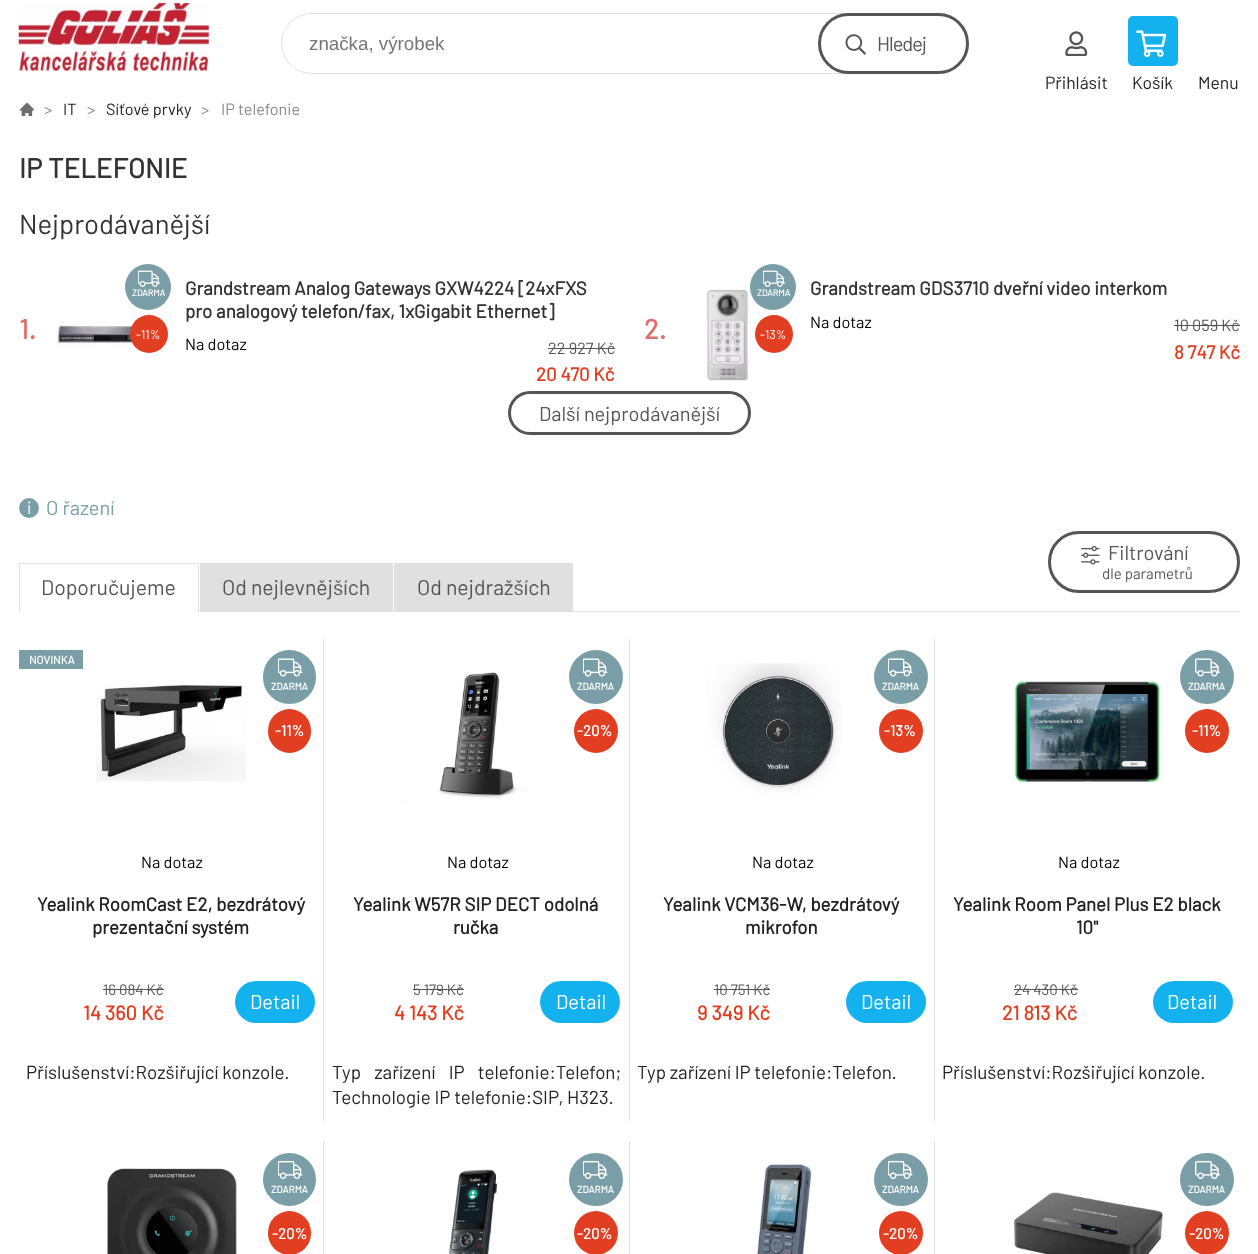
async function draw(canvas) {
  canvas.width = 1258
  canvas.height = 1254
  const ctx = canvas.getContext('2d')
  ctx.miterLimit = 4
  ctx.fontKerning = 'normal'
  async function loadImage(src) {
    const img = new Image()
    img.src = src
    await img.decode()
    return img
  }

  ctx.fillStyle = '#fff'
  ctx.fillRect(0, 0, 1258, 1254)
  ctx.drawImage(await loadImage('image0.png'), 18, 3, 191, 68)
  ctx.beginPath()
  ctx.roundRect(281.5, 13.5, 687, 60, 30)
  ctx.strokeStyle = '#e0e0e0'
  ctx.stroke()
  ctx.font = '18.75px Liberation Sans'
  ctx.fillStyle = '#757575'
  ctx.fillText('značka, výrobek', 309, 50)
  ctx.drawImage(await loadImage('image1.png'), 845, 34, 21, 21)
  ctx.beginPath()
  ctx.roundRect(819.5, 14.5, 148, 58, 29)
  ctx.strokeStyle = '#555'
  ctx.lineWidth = 3
  ctx.stroke()
  ctx.letterSpacing = '-1px'
  ctx.font = '20px Barlow'
  ctx.fillStyle = '#555'
  ctx.fillText('Hledej', 877, 51)
  ctx.drawImage(await loadImage('image2.png'), 1065, 31, 23, 25)
  ctx.letterSpacing = '0px'
  ctx.font = '17.5px Barlow'
  ctx.fillStyle = '#222'
  ctx.fillText('Přihlásit', 1045, 89)
  ctx.fillStyle = '#14b1ef'
  ctx.beginPath()
  ctx.roundRect(1128, 16, 50, 50, 5)
  ctx.fill()
  ctx.drawImage(await loadImage('image3.png'), 1136, 30, 30, 27)
  ctx.fillStyle = '#222'
  ctx.fillText('Košík', 1132, 89)
  ctx.fillText('Menu', 1198, 89)
  ctx.drawImage(await loadImage('image4.png'), 19, 103, 15, 13)
  ctx.font = '16.25px Barlow'
  ctx.fillStyle = '#888'
  ctx.fillText('>', 44, 115)
  ctx.fillStyle = '#222'
  ctx.fillText('IT', 63, 115)
  ctx.fillStyle = '#888'
  ctx.fillText('>', 87, 115)
  ctx.fillStyle = '#222'
  ctx.fillText('Síťové prvky', 106, 115)
  ctx.fillStyle = '#888'
  ctx.fillText('>', 201, 115)
  ctx.fillText('IP telefonie', 221, 115)
  ctx.font = 'bold 27.5px Barlow'
  ctx.fillStyle = '#333'
  ctx.fillText('IP TELEFONIE', 19, 178)
  ctx.font = '27.5px Barlow'
  ctx.fillText('Nejprodávanější', 19, 234)
  ctx.font = 'bold 27.5px Barlow'
  ctx.fillStyle = '#dc6f69'
  ctx.fillText('1.', 19, 339)
  ctx.drawImage(await loadImage('image5.png'), 56, 320, 81, 28)
  ctx.fillStyle = '#799ea7'
  ctx.beginPath()
  ctx.arc(148, 287, 23, 0, 2 * Math.PI)
  ctx.fill()
  ctx.drawImage(await loadImage('image6.png'), 138, 270, 22, 17)
  ctx.font = 'bold 9px Barlow'
  ctx.fillStyle = '#fff'
  ctx.fillText('ZDARMA', 132, 296)
  ctx.fillStyle = '#e23e21'
  ctx.beginPath()
  ctx.arc(149, 334, 19, 0, 2 * Math.PI)
  ctx.fill()
  ctx.font = '12.5px Barlow'
  ctx.fillStyle = '#fff'
  ctx.fillText('-11%', 136, 339)
  ctx.font = 'bold 18.75px Barlow'
  ctx.fillStyle = '#333'
  ctx.fillText('Grandstream Analog Gateways GXW4224 [24xFXS', 185, 295)
  ctx.fillText('pro analogový telefon/fax, 1xGigabit Ethernet]', 185, 318)
  ctx.font = '16.25px Barlow'
  ctx.fillStyle = '#000'
  ctx.fillText('Na dotaz', 185, 350)
  ctx.fillStyle = '#555'
  ctx.fillText('22 927 Kč', 548, 354)
  ctx.fillRect(548, 348, 67, 1)
  ctx.font = 'bold 18.75px Barlow'
  ctx.fillStyle = '#e23e21'
  ctx.fillText('20 470 Kč', 536, 381)
  ctx.font = 'bold 27.5px Barlow'
  ctx.fillStyle = '#dc6f69'
  ctx.fillText('2.', 644, 339)
  ctx.drawImage(await loadImage('image7.png'), 706, 289, 44, 92)
  ctx.fillStyle = '#799ea7'
  ctx.beginPath()
  ctx.arc(773, 287, 23, 0, 2 * Math.PI)
  ctx.fill()
  ctx.drawImage(await loadImage('image6.png'), 763, 270, 22, 17)
  ctx.font = 'bold 9px Barlow'
  ctx.fillStyle = '#fff'
  ctx.fillText('ZDARMA', 757, 296)
  ctx.fillStyle = '#e23e21'
  ctx.beginPath()
  ctx.arc(774, 334, 19, 0, 2 * Math.PI)
  ctx.fill()
  ctx.font = '12.5px Barlow'
  ctx.fillStyle = '#fff'
  ctx.fillText('-13%', 760, 339)
  ctx.font = 'bold 18.75px Barlow'
  ctx.fillStyle = '#333'
  ctx.fillText('Grandstream GDS3710 dveřní video interkom', 810, 295)
  ctx.font = '16.25px Barlow'
  ctx.fillStyle = '#000'
  ctx.fillText('Na dotaz', 810, 328)
  ctx.fillStyle = '#555'
  ctx.fillText('10 059 Kč', 1174, 331)
  ctx.fillRect(1174, 325, 66, 1)
  ctx.font = 'bold 18.75px Barlow'
  ctx.fillStyle = '#e23e21'
  ctx.fillText('8 747 Kč', 1174, 359)
  ctx.beginPath()
  ctx.roundRect(509.5, 392.5, 240, 41, 20.5)
  ctx.stroke()
  ctx.font = '20px Barlow'
  ctx.fillStyle = '#555'
  ctx.fillText('Další nejprodávanější', 539, 421)
  ctx.fillStyle = '#e0e0e0'
  ctx.fillRect(19, 611, 1221, 1)
  ctx.fillStyle = '#799ea7'
  ctx.beginPath()
  ctx.arc(29, 508, 10, 0, 2 * Math.PI)
  ctx.fill()
  ctx.font = '17.5px Barlow'
  ctx.fillStyle = '#fff'
  ctx.fillText('i', 27, 514)
  ctx.font = '20px Barlow'
  ctx.fillStyle = '#799ea7'
  ctx.fillText('O řazení', 46, 515)
  ctx.drawImage(await loadImage('image8.png'), 1081, 546, 19, 19)
  ctx.beginPath()
  ctx.roundRect(1049.5, 532.5, 189, 59, 29.5)
  ctx.stroke()
  ctx.fillStyle = '#555'
  ctx.fillText('Filtrování', 1108, 560)
  ctx.font = '15px Barlow'
  ctx.fillText('dle parametrů', 1102, 579)
  ctx.fillStyle = '#e0e0e0'
  ctx.fillRect(19, 563, 180, 1)
  ctx.fillRect(198, 563, 1, 48)
  ctx.fillRect(19, 563, 1, 48)
  ctx.font = '21.25px Barlow'
  ctx.fillStyle = '#555'
  ctx.fillText('Doporučujeme', 41, 595)
  ctx.fillStyle = '#fff'
  ctx.fillRect(20, 611, 178, 1)
  ctx.fillStyle = '#e0e0e0'
  ctx.fillRect(200, 563, 193, 48)
  ctx.fillStyle = '#555'
  ctx.fillText('Od nejlevnějších', 222, 595)
  ctx.fillStyle = '#e0e0e0'
  ctx.fillRect(394, 563, 179, 48)
  ctx.fillStyle = '#555'
  ctx.fillText('Od nejdražších', 417, 595)
  ctx.fillStyle = '#e0e0e0'
  ctx.fillRect(323, 639, 1, 482)
  ctx.fillStyle = '#799ea7'
  ctx.fillRect(19, 650, 64, 19)
  ctx.font = 'bold 11.25px Barlow'
  ctx.fillStyle = '#fff'
  ctx.fillText('NOVINKA', 29, 664)
  ctx.drawImage(await loadImage('image9.png'), 96, 685, 150, 97)
  ctx.fillStyle = '#799ea7'
  ctx.beginPath()
  ctx.roundRect(263, 650, 53, 54, 26.5)
  ctx.fill()
  ctx.drawImage(await loadImage('image10.png'), 278, 658, 25, 19)
  ctx.font = 'bold 10px Barlow'
  ctx.fillStyle = '#fff'
  ctx.fillText('ZDARMA', 271, 690)
  ctx.fillStyle = '#e23e21'
  ctx.beginPath()
  ctx.roundRect(268, 709, 43, 44, 21.5)
  ctx.fill()
  ctx.font = 'bold 15px Barlow'
  ctx.fillStyle = '#fff'
  ctx.fillText('-11%', 275, 736)
  ctx.font = '16.25px Barlow'
  ctx.fillStyle = '#000'
  ctx.fillText('Na dotaz', 141, 868)
  ctx.font = '15px Barlow'
  ctx.fillStyle = '#555'
  ctx.fillText('16 084 Kč', 103, 995)
  ctx.fillRect(103, 989, 61, 1)
  ctx.font = 'bold 20px Barlow'
  ctx.fillStyle = '#e23e21'
  ctx.fillText('14 360 Kč', 83, 1020)
  ctx.fillStyle = '#14b1ef'
  ctx.beginPath()
  ctx.roundRect(235, 981, 80, 42, 21)
  ctx.fill()
  ctx.font = '20px Barlow'
  ctx.fillStyle = '#fff'
  ctx.fillText('Detail', 250, 1009)
  ctx.font = 'bold 18.75px Barlow'
  ctx.fillStyle = '#222'
  ctx.fillText('Yealink RoomCast E2, bezdrátový', 37, 911)
  ctx.fillText('prezentační systém', 92, 934)
  ctx.font = '18.75px Barlow'
  ctx.fillText('Příslušenství:Rozšiřující konzole.', 26, 1079)
  ctx.fillStyle = '#e0e0e0'
  ctx.fillRect(629, 639, 1, 482)
  ctx.drawImage(await loadImage('image11.png'), 401, 672, 126, 130)
  ctx.fillStyle = '#799ea7'
  ctx.beginPath()
  ctx.arc(596, 677, 27, 0, 2 * Math.PI)
  ctx.fill()
  ctx.drawImage(await loadImage('image10.png'), 583, 658, 25, 19)
  ctx.font = 'bold 10px Barlow'
  ctx.fillStyle = '#fff'
  ctx.fillText('ZDARMA', 577, 690)
  ctx.fillStyle = '#e23e21'
  ctx.beginPath()
  ctx.arc(596, 731, 22, 0, 2 * Math.PI)
  ctx.fill()
  ctx.font = 'bold 15px Barlow'
  ctx.fillStyle = '#fff'
  ctx.fillText('-20%', 577, 736)
  ctx.font = '16.25px Barlow'
  ctx.fillStyle = '#000'
  ctx.fillText('Na dotaz', 447, 868)
  ctx.font = '15px Barlow'
  ctx.fillStyle = '#555'
  ctx.fillText('5 179 Kč', 413, 995)
  ctx.fillRect(413, 989, 51, 1)
  ctx.font = 'bold 20px Barlow'
  ctx.fillStyle = '#e23e21'
  ctx.fillText('4 143 Kč', 394, 1020)
  ctx.fillStyle = '#14b1ef'
  ctx.beginPath()
  ctx.roundRect(540, 981, 80, 42, 21)
  ctx.fill()
  ctx.font = '20px Barlow'
  ctx.fillStyle = '#fff'
  ctx.fillText('Detail', 556, 1009)
  ctx.font = 'bold 18.75px Barlow'
  ctx.fillStyle = '#222'
  ctx.fillText('Yealink W57R SIP DECT odolná', 353, 911)
  ctx.fillText('ručka', 453, 934)
  ctx.wordSpacing = '9.5px'
  ctx.font = '18.75px Barlow'
  ctx.fillText('Typ zařízení IP telefonie:Telefon;', 332, 1079)
  ctx.wordSpacing = '0px'
  ctx.fillText('Technologie IP telefonie:SIP, H323.', 332, 1104)
  ctx.fillStyle = '#e0e0e0'
  ctx.fillRect(934, 639, 1, 482)
  ctx.drawImage(await loadImage('image12.png'), 706, 663, 135, 139)
  ctx.fillStyle = '#799ea7'
  ctx.beginPath()
  ctx.arc(901, 677, 27, 0, 2 * Math.PI)
  ctx.fill()
  ctx.drawImage(await loadImage('image10.png'), 888, 658, 25, 19)
  ctx.font = 'bold 10px Barlow'
  ctx.fillStyle = '#fff'
  ctx.fillText('ZDARMA', 882, 690)
  ctx.fillStyle = '#e23e21'
  ctx.beginPath()
  ctx.arc(901, 731, 22, 0, 2 * Math.PI)
  ctx.fill()
  ctx.font = 'bold 15px Barlow'
  ctx.fillStyle = '#fff'
  ctx.fillText('-13%', 884, 736)
  ctx.font = '16.25px Barlow'
  ctx.fillStyle = '#000'
  ctx.fillText('Na dotaz', 752, 868)
  ctx.font = '15px Barlow'
  ctx.fillStyle = '#555'
  ctx.fillText('10 751 Kč', 714, 995)
  ctx.fillRect(714, 989, 56, 1)
  ctx.font = 'bold 20px Barlow'
  ctx.fillStyle = '#e23e21'
  ctx.fillText('9 349 Kč', 697, 1020)
  ctx.fillStyle = '#14b1ef'
  ctx.beginPath()
  ctx.roundRect(846, 981, 80, 42, 21)
  ctx.fill()
  ctx.font = '20px Barlow'
  ctx.fillStyle = '#fff'
  ctx.fillText('Detail', 861, 1009)
  ctx.font = 'bold 18.75px Barlow'
  ctx.fillStyle = '#222'
  ctx.fillText('Yealink VCM36-W, bezdrátový', 663, 911)
  ctx.fillText('mikrofon', 745, 934)
  ctx.font = '18.75px Barlow'
  ctx.fillText('Typ zařízení IP telefonie:Telefon.', 637, 1079)
  ctx.drawImage(await loadImage('image13.png'), 1013, 679, 148, 104)
  ctx.fillStyle = '#799ea7'
  ctx.beginPath()
  ctx.arc(1207, 677, 27, 0, 2 * Math.PI)
  ctx.fill()
  ctx.drawImage(await loadImage('image14.png'), 1195, 658, 25, 19)
  ctx.font = 'bold 10px Barlow'
  ctx.fillStyle = '#fff'
  ctx.fillText('ZDARMA', 1188, 690)
  ctx.fillStyle = '#e23e21'
  ctx.beginPath()
  ctx.arc(1207, 731, 22, 0, 2 * Math.PI)
  ctx.fill()
  ctx.font = 'bold 15px Barlow'
  ctx.fillStyle = '#fff'
  ctx.fillText('-11%', 1192, 736)
  ctx.font = '16.25px Barlow'
  ctx.fillStyle = '#000'
  ctx.fillText('Na dotaz', 1058, 868)
  ctx.font = '15px Barlow'
  ctx.fillStyle = '#555'
  ctx.fillText('24 430 Kč', 1014, 995)
  ctx.fillRect(1014, 989, 64, 1)
  ctx.font = 'bold 20px Barlow'
  ctx.fillStyle = '#e23e21'
  ctx.fillText('21 813 Kč', 1002, 1020)
  ctx.fillStyle = '#14b1ef'
  ctx.beginPath()
  ctx.roundRect(1153, 981, 80, 42, 21)
  ctx.fill()
  ctx.font = '20px Barlow'
  ctx.fillStyle = '#fff'
  ctx.fillText('Detail', 1167, 1009)
  ctx.font = 'bold 18.75px Barlow'
  ctx.fillStyle = '#222'
  ctx.fillText('Yealink Room Panel Plus E2 black', 953, 911)
  ctx.fillText('10"', 1076, 934)
  ctx.font = '18.75px Barlow'
  ctx.fillText('Příslušenství:Rozšiřující konzole.', 942, 1079)
  ctx.fillStyle = '#e0e0e0'
  ctx.fillRect(323, 1141, 1, 113)
  ctx.drawImage(await loadImage('image15.png'), 106, 1167, 131, 87)
  ctx.fillStyle = '#799ea7'
  ctx.beginPath()
  ctx.arc(289.5, 1179.5, 26.5, 0, 2 * Math.PI)
  ctx.fill()
  ctx.drawImage(await loadImage('image16.png'), 278, 1160, 25, 19)
  ctx.font = 'bold 10px Barlow'
  ctx.fillStyle = '#fff'
  ctx.fillText('ZDARMA', 271, 1193)
  ctx.fillStyle = '#e23e21'
  ctx.beginPath()
  ctx.roundRect(268, 1211, 43, 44, 21.5)
  ctx.fill()
  ctx.font = 'bold 15px Barlow'
  ctx.fillStyle = '#fff'
  ctx.fillText('-20%', 272, 1239)
  ctx.fillStyle = '#e0e0e0'
  ctx.fillRect(629, 1141, 1, 113)
  ctx.drawImage(await loadImage('image17.png'), 449, 1169, 49, 85)
  ctx.fillStyle = '#799ea7'
  ctx.beginPath()
  ctx.roundRect(569, 1153, 54, 53, 26.5)
  ctx.fill()
  ctx.drawImage(await loadImage('image16.png'), 583, 1160, 25, 19)
  ctx.font = 'bold 10px Barlow'
  ctx.fillStyle = '#fff'
  ctx.fillText('ZDARMA', 577, 1193)
  ctx.fillStyle = '#e23e21'
  ctx.beginPath()
  ctx.arc(596, 1233, 22, 0, 2 * Math.PI)
  ctx.fill()
  ctx.font = 'bold 15px Barlow'
  ctx.fillStyle = '#fff'
  ctx.fillText('-20%', 577, 1239)
  ctx.fillStyle = '#e0e0e0'
  ctx.fillRect(934, 1141, 1, 113)
  ctx.drawImage(await loadImage('image18.png'), 757, 1163, 55, 91)
  ctx.fillStyle = '#799ea7'
  ctx.beginPath()
  ctx.roundRect(874, 1153, 54, 53, 26.5)
  ctx.fill()
  ctx.drawImage(await loadImage('image16.png'), 888, 1160, 25, 19)
  ctx.font = 'bold 10px Barlow'
  ctx.fillStyle = '#fff'
  ctx.fillText('ZDARMA', 882, 1193)
  ctx.fillStyle = '#e23e21'
  ctx.beginPath()
  ctx.arc(901, 1233, 22, 0, 2 * Math.PI)
  ctx.fill()
  ctx.font = 'bold 15px Barlow'
  ctx.fillStyle = '#fff'
  ctx.fillText('-20%', 883, 1239)
  ctx.drawImage(await loadImage('image19.png'), 1012, 1192, 151, 62)
  ctx.fillStyle = '#799ea7'
  ctx.beginPath()
  ctx.roundRect(1180, 1153, 54, 53, 26.5)
  ctx.fill()
  ctx.drawImage(await loadImage('image20.png'), 1195, 1160, 25, 19)
  ctx.font = 'bold 10px Barlow'
  ctx.fillStyle = '#fff'
  ctx.fillText('ZDARMA', 1188, 1193)
  ctx.fillStyle = '#e23e21'
  ctx.beginPath()
  ctx.arc(1207, 1233, 22, 0, 2 * Math.PI)
  ctx.fill()
  ctx.font = 'bold 15px Barlow'
  ctx.fillStyle = '#fff'
  ctx.fillText('-20%', 1189, 1239)
}

draw(document.querySelector('canvas'))
